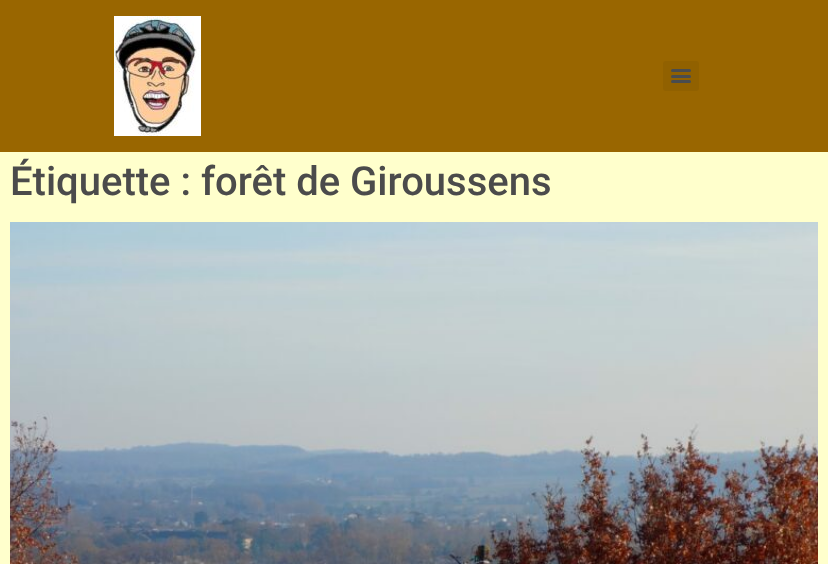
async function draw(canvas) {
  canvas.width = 828
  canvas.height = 564
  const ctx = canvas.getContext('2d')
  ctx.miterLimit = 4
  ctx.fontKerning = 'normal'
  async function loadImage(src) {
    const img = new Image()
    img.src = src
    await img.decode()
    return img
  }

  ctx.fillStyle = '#960'
  ctx.fillRect(0, 0, 828, 564)
  ctx.drawImage(await loadImage('image0.png'), 114, 16, 87, 120)
  ctx.fillStyle = '#916100'
  ctx.beginPath()
  ctx.roundRect(663, 61, 36, 30, 3)
  ctx.fill()
  ctx.fillStyle = '#494c4f'
  ctx.beginPath()
  ctx.roundRect(671, 75, 20, 3, 1.5)
  ctx.fill()
  ctx.beginPath()
  ctx.roundRect(671, 69, 20, 3, 1.5)
  ctx.fill()
  ctx.beginPath()
  ctx.roundRect(671, 80, 20, 3, 1.5)
  ctx.fill()
  ctx.fillStyle = '#ffc'
  ctx.fillRect(0, 152, 828, 412)
  ctx.font = '500 40px Roboto'
  ctx.fillStyle = '#4b4b4b'
  ctx.fillText('Étiquette : forêt de Giroussens', 10, 195)
  ctx.drawImage(await loadImage('image1.png'), 10, 222, 808, 342)
}

draw(document.querySelector('canvas'))
